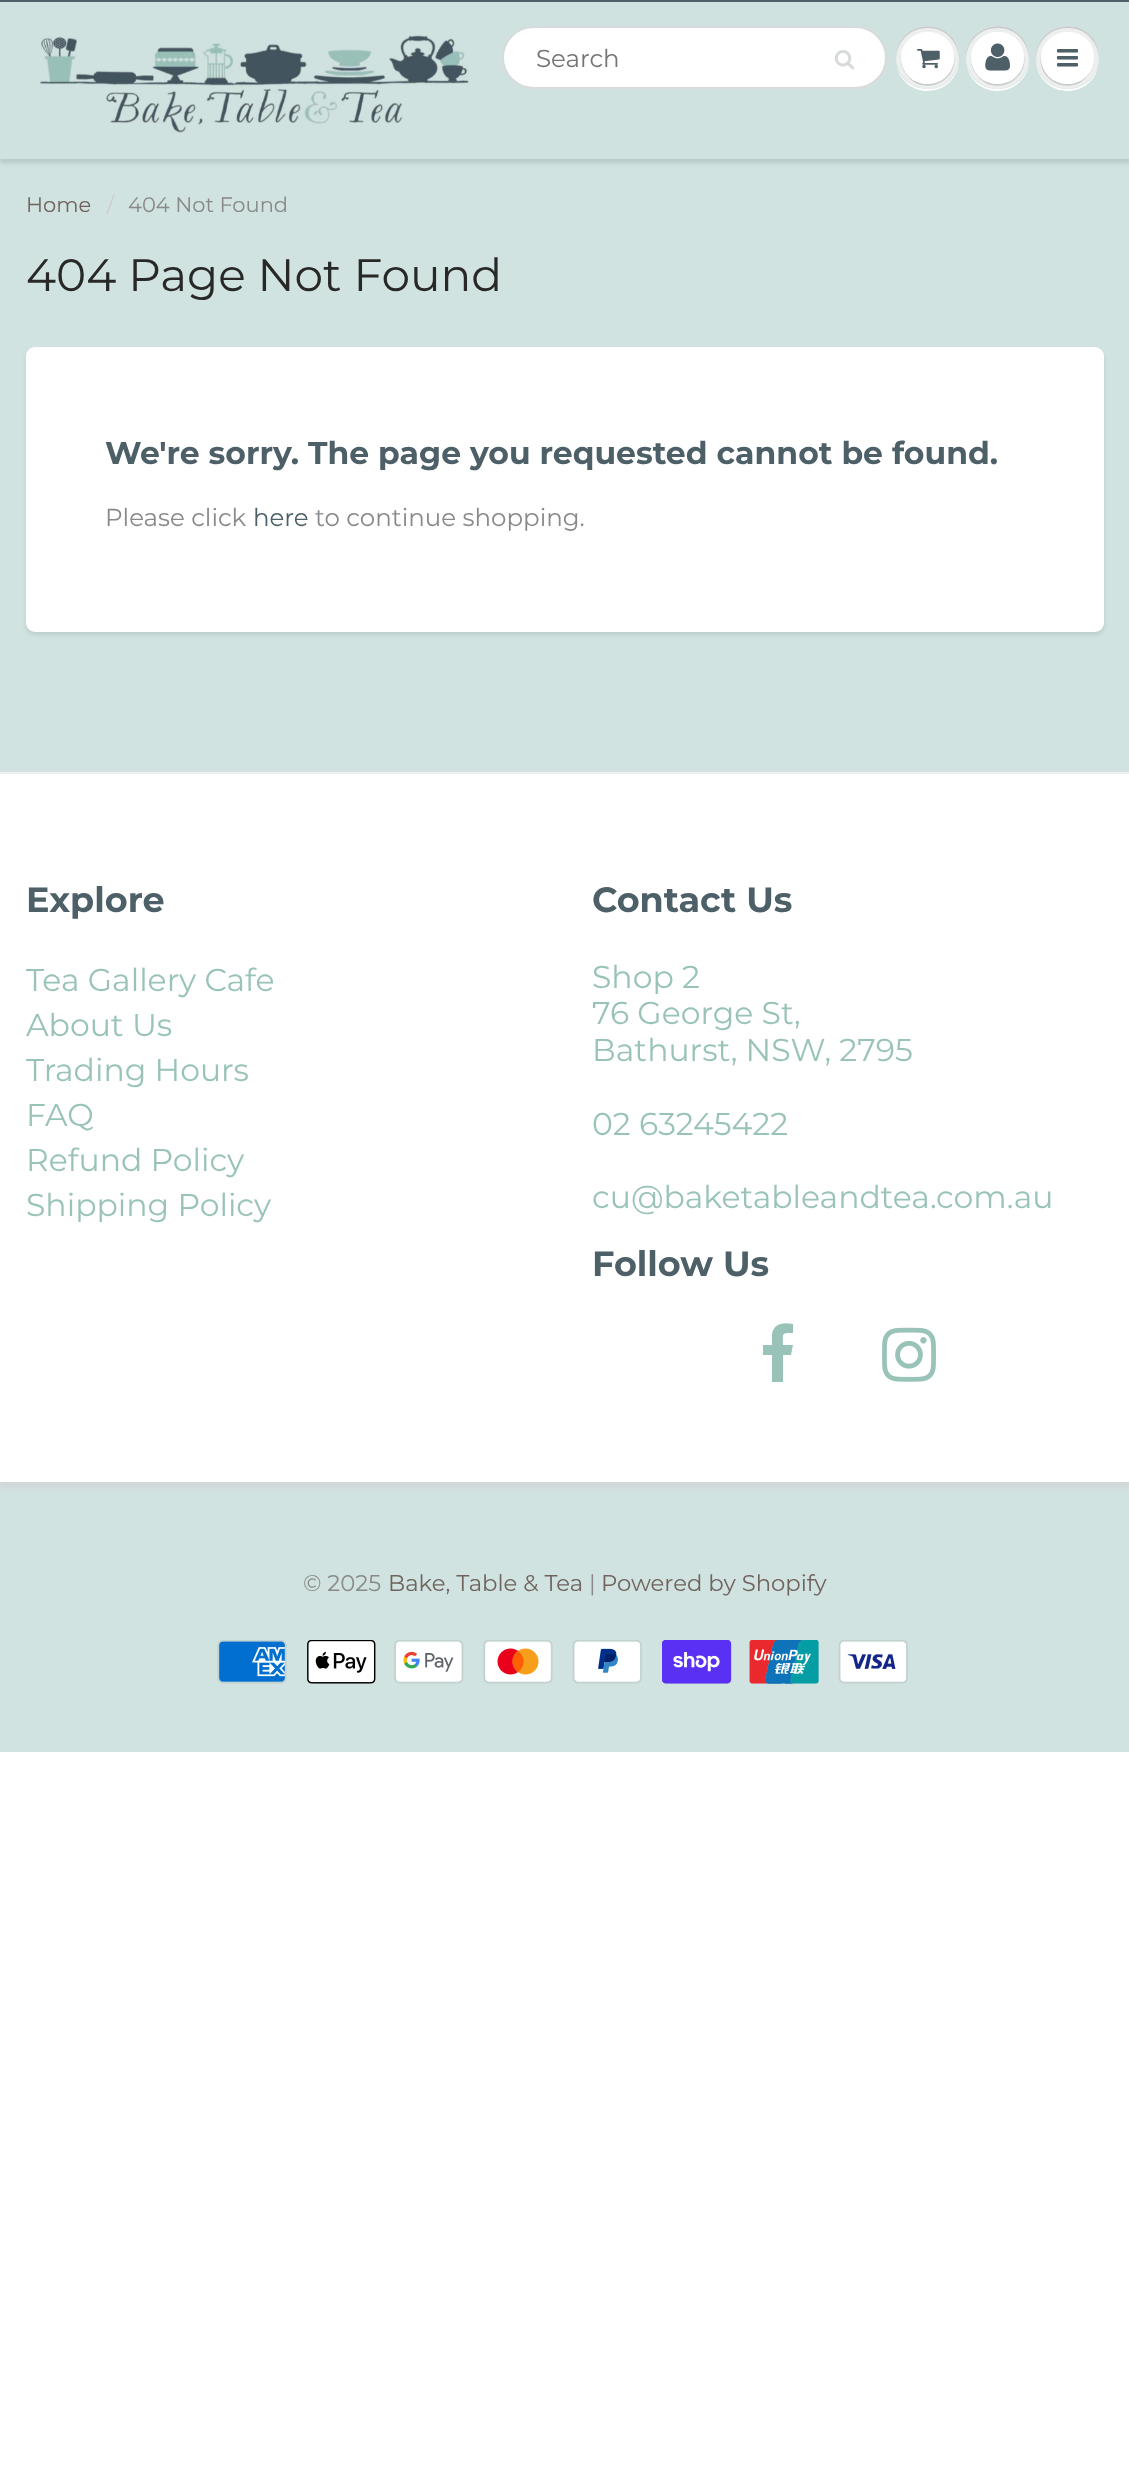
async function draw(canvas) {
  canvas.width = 1129
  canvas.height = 2466
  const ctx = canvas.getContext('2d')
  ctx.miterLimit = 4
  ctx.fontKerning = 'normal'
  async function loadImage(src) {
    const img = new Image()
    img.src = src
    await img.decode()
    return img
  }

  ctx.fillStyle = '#fff'
  ctx.fillRect(0, 0, 1129, 2466)
  ctx.fillStyle = '#d0e3e0'
  ctx.fillRect(0, 159, 1129, 613)
  ctx.fillStyle = '#0b191c1f'
  ctx.filter = 'blur(2px)'
  ctx.beginPath()
  ctx.rect(0, 4, 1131, 159)
  ctx.fill()
  ctx.filter = 'none'
  ctx.fillStyle = '#d0e2e0'
  ctx.fillRect(0, 2, 1129, 157)
  ctx.fillStyle = '#4d5f67'
  ctx.fillRect(0, 0, 1129, 2)
  ctx.drawImage(await loadImage('image0.png'), 40, 35, 429, 98)
  ctx.fillStyle = '#fff'
  ctx.beginPath()
  ctx.roundRect(503, 27, 383, 61, 30.5)
  ctx.fill()
  ctx.strokeStyle = '#d7dbdb'
  ctx.lineWidth = 2
  ctx.stroke()
  ctx.font = '24.5px Montserrat'
  ctx.fillStyle = '#757575'
  ctx.fillText('Search', 536, 67)
  ctx.drawImage(await loadImage('image1.png'), 834, 50, 21, 20)
  ctx.fillStyle = '#fff'
  ctx.beginPath()
  ctx.moveTo(959, 59)
  ctx.bezierCurveTo(959, 76, 945, 89, 928, 89)
  ctx.bezierCurveTo(910, 89, 896, 76, 896, 59)
  ctx.bezierCurveTo(896, 65, 898, 72, 901, 77)
  ctx.bezierCurveTo(919, 103, 960, 90, 959, 59)
  ctx.closePath()
  ctx.fill()
  ctx.fillStyle = '#edefef'
  ctx.beginPath()
  ctx.arc(927.5, 57.5, 31.5, 0, 2 * Math.PI)
  ctx.fill()
  ctx.fillStyle = '#c9cbcb'
  ctx.beginPath()
  ctx.moveTo(928, 28)
  ctx.bezierCurveTo(945, 28, 958, 41, 959, 59)
  ctx.bezierCurveTo(959, 52, 957, 45, 954, 40)
  ctx.bezierCurveTo(936, 14, 895, 27, 896, 59)
  ctx.bezierCurveTo(897, 41, 910, 28, 928, 28)
  ctx.closePath()
  ctx.fill()
  ctx.beginPath()
  ctx.moveTo(901, 55)
  ctx.bezierCurveTo(900, 62, 902, 69, 906, 74)
  ctx.bezierCurveTo(922, 98, 959, 82, 954, 55)
  ctx.bezierCurveTo(957, 82, 921, 95, 906, 72)
  ctx.bezierCurveTo(902, 67, 901, 61, 901, 55)
  ctx.closePath()
  ctx.fill()
  ctx.fillStyle = '#fff'
  ctx.beginPath()
  ctx.roundRect(901, 32, 53, 52, 26)
  ctx.fill()
  ctx.beginPath()
  ctx.moveTo(928, 33)
  ctx.bezierCurveTo(942, 33, 953, 44, 954, 59)
  ctx.bezierCurveTo(954, 54, 953, 48, 950, 43)
  ctx.bezierCurveTo(935, 22, 900, 33, 901, 59)
  ctx.bezierCurveTo(902, 44, 913, 33, 928, 33)
  ctx.closePath()
  ctx.fill()
  ctx.drawImage(await loadImage('image2.png'), 917, 49, 23, 20)
  ctx.beginPath()
  ctx.moveTo(1029, 59)
  ctx.bezierCurveTo(1029, 76, 1015, 89, 998, 89)
  ctx.bezierCurveTo(980, 89, 966, 76, 966, 59)
  ctx.bezierCurveTo(966, 65, 968, 72, 971, 77)
  ctx.bezierCurveTo(989, 103, 1030, 90, 1029, 59)
  ctx.closePath()
  ctx.fill()
  ctx.fillStyle = '#edefef'
  ctx.beginPath()
  ctx.arc(997.5, 57.5, 31.5, 0, 2 * Math.PI)
  ctx.fill()
  ctx.fillStyle = '#c9cbcb'
  ctx.beginPath()
  ctx.moveTo(998, 28)
  ctx.bezierCurveTo(1015, 28, 1028, 41, 1029, 59)
  ctx.bezierCurveTo(1029, 52, 1027, 45, 1024, 40)
  ctx.bezierCurveTo(1006, 14, 965, 27, 966, 59)
  ctx.bezierCurveTo(967, 41, 980, 28, 998, 28)
  ctx.closePath()
  ctx.fill()
  ctx.beginPath()
  ctx.moveTo(971, 55)
  ctx.bezierCurveTo(970, 62, 972, 69, 976, 74)
  ctx.bezierCurveTo(992, 98, 1029, 82, 1024, 55)
  ctx.bezierCurveTo(1027, 82, 991, 95, 976, 72)
  ctx.bezierCurveTo(972, 67, 971, 61, 971, 55)
  ctx.closePath()
  ctx.fill()
  ctx.fillStyle = '#fff'
  ctx.beginPath()
  ctx.roundRect(971, 32, 53, 52, 26)
  ctx.fill()
  ctx.beginPath()
  ctx.moveTo(998, 33)
  ctx.bezierCurveTo(1012, 33, 1023, 44, 1024, 59)
  ctx.bezierCurveTo(1024, 54, 1023, 48, 1020, 43)
  ctx.bezierCurveTo(1005, 22, 970, 33, 971, 59)
  ctx.bezierCurveTo(972, 44, 983, 33, 998, 33)
  ctx.closePath()
  ctx.fill()
  ctx.drawImage(await loadImage('image3.png'), 985, 43, 25, 28)
  ctx.beginPath()
  ctx.moveTo(1099, 59)
  ctx.bezierCurveTo(1099, 76, 1085, 89, 1068, 89)
  ctx.bezierCurveTo(1050, 89, 1036, 76, 1036, 59)
  ctx.bezierCurveTo(1035, 90, 1076, 103, 1094, 77)
  ctx.bezierCurveTo(1097, 72, 1099, 65, 1099, 59)
  ctx.closePath()
  ctx.fill()
  ctx.fillStyle = '#edefef'
  ctx.beginPath()
  ctx.arc(1067.5, 57.5, 31.5, 0, 2 * Math.PI)
  ctx.fill()
  ctx.fillStyle = '#c9cbcb'
  ctx.beginPath()
  ctx.moveTo(1068, 28)
  ctx.bezierCurveTo(1085, 28, 1098, 41, 1099, 59)
  ctx.bezierCurveTo(1099, 52, 1097, 45, 1094, 40)
  ctx.bezierCurveTo(1076, 14, 1035, 27, 1036, 59)
  ctx.bezierCurveTo(1037, 41, 1050, 28, 1068, 28)
  ctx.closePath()
  ctx.fill()
  ctx.beginPath()
  ctx.moveTo(1041, 55)
  ctx.bezierCurveTo(1036, 82, 1073, 98, 1089, 74)
  ctx.bezierCurveTo(1093, 69, 1095, 62, 1094, 55)
  ctx.bezierCurveTo(1097, 82, 1061, 95, 1046, 72)
  ctx.bezierCurveTo(1042, 67, 1041, 61, 1041, 55)
  ctx.closePath()
  ctx.fill()
  ctx.fillStyle = '#fff'
  ctx.beginPath()
  ctx.roundRect(1041, 32, 53, 52, 26)
  ctx.fill()
  ctx.beginPath()
  ctx.moveTo(1068, 33)
  ctx.bezierCurveTo(1082, 33, 1093, 44, 1094, 59)
  ctx.bezierCurveTo(1094, 54, 1093, 48, 1090, 43)
  ctx.bezierCurveTo(1075, 22, 1040, 33, 1041, 59)
  ctx.bezierCurveTo(1042, 44, 1053, 33, 1068, 33)
  ctx.closePath()
  ctx.fill()
  ctx.drawImage(await loadImage('image4.png'), 1057, 49, 21, 18)
  ctx.font = '21px Montserrat'
  ctx.fillStyle = '#70635d'
  ctx.fillText('Home', 26, 212)
  ctx.fillStyle = '#ccc'
  ctx.fillText('/', 107, 212)
  ctx.fillStyle = '#898989'
  ctx.fillText('404 Not Found', 128, 212)
  ctx.font = '45.5px Montserrat'
  ctx.fillStyle = '#282827'
  ctx.fillText('404 Page Not Found', 26, 291)
  ctx.fillStyle = '#0b191c1a'
  ctx.filter = 'blur(2px)'
  ctx.beginPath()
  ctx.roundRect(26, 350, 1078, 285, 9)
  ctx.fill()
  ctx.filter = 'none'
  ctx.fillStyle = '#fff'
  ctx.beginPath()
  ctx.roundRect(26, 347, 1078, 285, 9)
  ctx.fill()
  ctx.font = 'bold 31.5px Montserrat'
  ctx.fillStyle = '#4d5f67'
  ctx.fillText('We\'re sorry. The page you requested cannot be found.', 105, 464)
  ctx.font = '24.5px Montserrat'
  ctx.fillStyle = '#898989'
  ctx.fillText('Please click', 105, 526)
  ctx.fillStyle = '#4d5f67'
  ctx.fillText('here', 253, 526)
  ctx.fillStyle = '#898989'
  ctx.fillText('to continue shopping.', 315, 526)
  ctx.fillStyle = '#d0e3e0'
  ctx.fillRect(0, 1482, 1129, 270)
  ctx.save()
  ctx.beginPath()
  ctx.rect(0, 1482, 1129, 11)
  ctx.clip()
  ctx.fillStyle = '#d1d7d7'
  ctx.filter = 'blur(2.5px)'
  ctx.beginPath()
  ctx.rect(0, 777, 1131, 711)
  ctx.fill()
  ctx.filter = 'none'
  ctx.restore()
  ctx.fillStyle = '#ecefef'
  ctx.fillRect(0, 772, 1129, 2)
  ctx.font = 'bold 35px Montserrat'
  ctx.fillStyle = '#4d5f67'
  ctx.fillText('Explore', 26, 912)
  ctx.font = '31.5px Montserrat'
  ctx.fillStyle = '#99c3b9'
  ctx.fillText('Tea Gallery Cafe', 26, 991)
  ctx.fillText('About Us', 26, 1036)
  ctx.fillText('Trading Hours', 26, 1081)
  ctx.fillText('FAQ', 26, 1126)
  ctx.fillText('Refund Policy', 26, 1171)
  ctx.fillText('Shipping Policy', 26, 1216)
  ctx.font = 'bold 35px Montserrat'
  ctx.fillStyle = '#4d5f67'
  ctx.fillText('Contact Us', 592, 912)
  ctx.font = '31.5px Montserrat'
  ctx.fillStyle = '#99c3b9'
  ctx.fillText('Shop 2', 592, 988)
  ctx.fillText('76 George St,', 592, 1024)
  ctx.fillText('Bathurst, NSW, 2795', 592, 1061)
  ctx.fillText('02 63245422', 592, 1135)
  ctx.fillText('cu@baketableandtea.com.au', 592, 1208)
  ctx.font = 'bold 35px Montserrat'
  ctx.fillStyle = '#4d5f67'
  ctx.fillText('Follow Us', 592, 1276)
  ctx.fillStyle = '#99c3b9'
  ctx.beginPath()
  ctx.moveTo(793, 1324)
  ctx.lineTo(793, 1333)
  ctx.bezierCurveTo(781, 1333, 783, 1333, 783, 1345)
  ctx.lineTo(793, 1345)
  ctx.lineTo(791, 1355)
  ctx.lineTo(783, 1355)
  ctx.lineTo(783, 1382)
  ctx.lineTo(772, 1382)
  ctx.lineTo(772, 1355)
  ctx.lineTo(763, 1355)
  ctx.lineTo(763, 1345)
  ctx.lineTo(772, 1345)
  ctx.lineTo(772, 1334)
  ctx.bezierCurveTo(774, 1323, 784, 1322, 793, 1324)
  ctx.closePath()
  ctx.fill()
  ctx.drawImage(await loadImage('image5.png'), 882, 1327, 54, 55)
  ctx.font = '22.75px Montserrat'
  ctx.fillStyle = '#898989'
  ctx.fillText('© 2025', 303, 1591)
  ctx.fillStyle = '#70635d'
  ctx.fillText('Bake, Table & Tea', 388, 1591)
  ctx.fillStyle = '#898989'
  ctx.fillText('|', 589, 1591)
  ctx.fillStyle = '#70635d'
  ctx.fillText('Powered by Shopify', 601, 1591)
  ctx.drawImage(await loadImage('image6.png'), 217, 1640, 70, 44)
  ctx.drawImage(await loadImage('image7.png'), 307, 1640, 69, 44)
  ctx.drawImage(await loadImage('image8.png'), 394, 1640, 70, 44)
  ctx.drawImage(await loadImage('image9.png'), 483, 1640, 70, 44)
  ctx.drawImage(await loadImage('image10.png'), 572, 1640, 70, 44)
  ctx.drawImage(await loadImage('image11.png'), 662, 1640, 70, 44)
  ctx.drawImage(await loadImage('image12.png'), 749, 1640, 70, 44)
  ctx.drawImage(await loadImage('image13.png'), 838, 1640, 70, 44)
}

draw(document.querySelector('canvas'))
